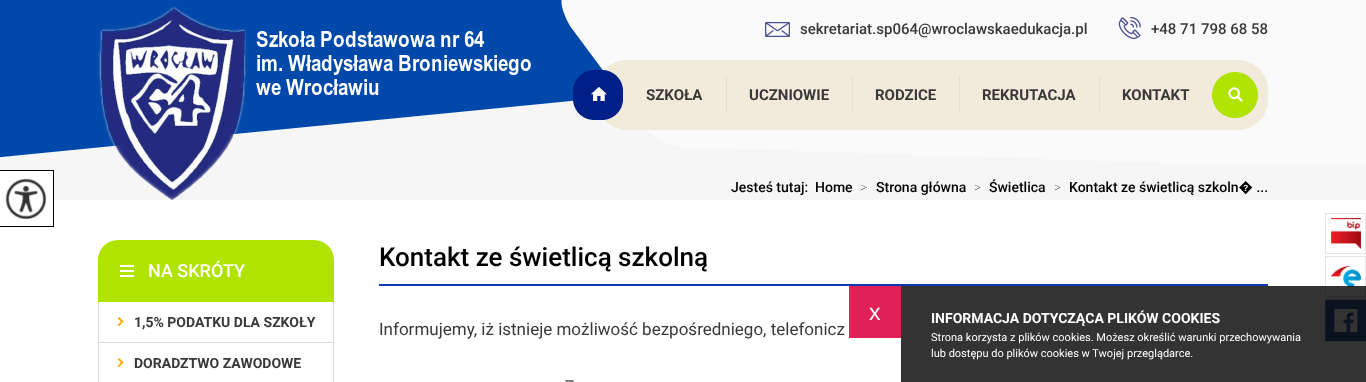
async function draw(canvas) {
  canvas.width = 1366
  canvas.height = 382
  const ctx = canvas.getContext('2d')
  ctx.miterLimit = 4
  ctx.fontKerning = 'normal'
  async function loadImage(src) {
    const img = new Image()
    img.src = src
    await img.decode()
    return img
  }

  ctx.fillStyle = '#fff'
  ctx.fillRect(0, 0, 1366, 382)
  ctx.fillStyle = '#f6f6f6'
  ctx.fillRect(0, 100, 1366, 100)
  ctx.drawImage(await loadImage('image0.png'), 0, 0, 1366, 163)
  ctx.drawImage(await loadImage('image1.png'), 98, 6, 433, 195)
  ctx.drawImage(await loadImage('image2.png'), 765, 22, 25, 15)
  ctx.font = '500 15px Roboto'
  ctx.fillStyle = '#393939'
  ctx.fillText('sekretariat.sp064@wroclawskaedukacja.pl', 800, 34)
  ctx.drawImage(await loadImage('image3.png'), 1118, 17, 23, 22)
  ctx.fillText('+48 71 798 68 58', 1151, 34)
  ctx.fillStyle = '#f2eadb'
  ctx.beginPath()
  ctx.roundRect(597, 60, 671, 70, 30)
  ctx.fill()
  ctx.drawImage(await loadImage('image4.png'), 573, 70, 50, 50)
  ctx.font = 'bold 15px Roboto'
  ctx.fillStyle = '#393939'
  ctx.fillText('SZKOŁA', 646, 100)
  ctx.drawImage(await loadImage('image5.png'), 726, 76, 1, 38)
  ctx.fillText('UCZNIOWIE', 749, 100)
  ctx.drawImage(await loadImage('image5.png'), 852, 76, 1, 38)
  ctx.fillText('RODZICE', 875, 100)
  ctx.drawImage(await loadImage('image5.png'), 959, 76, 1, 38)
  ctx.fillText('REKRUTACJA', 982, 100)
  ctx.drawImage(await loadImage('image5.png'), 1099, 76, 1, 38)
  ctx.fillText('KONTAKT', 1122, 100)
  ctx.drawImage(await loadImage('image6.png'), 1212, 72, 46, 46)
  ctx.fillStyle = '#fff'
  ctx.fillRect(0, 171, 53, 29)
  ctx.strokeStyle = '#000'
  ctx.strokeRect(-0.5, 170.5, 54, 56)
  ctx.drawImage(await loadImage('image7.png'), 5, 178, 41, 41)
  ctx.font = '500 14px Roboto'
  ctx.fillStyle = '#000'
  ctx.fillText('Jesteś tutaj:', 731, 192)
  ctx.fillText('Home', 815, 192)
  ctx.font = '100 14px Roboto'
  ctx.fillText('>', 860, 192)
  ctx.font = '500 14px Roboto'
  ctx.fillText('Strona główna', 876, 192)
  ctx.font = '100 14px Roboto'
  ctx.fillText('>', 974, 192)
  ctx.font = '500 14px Roboto'
  ctx.fillText('Świetlica', 989, 192)
  ctx.font = '100 14px Roboto'
  ctx.fillText('>', 1054, 192)
  ctx.font = '500 14px Roboto'
  ctx.fillText('Kontakt ze świetlicą szkoln� ...', 1069, 192)
  ctx.fillStyle = '#b0e300'
  ctx.beginPath()
  ctx.roundRect(98, 240, 236, 62, [20, 20, 0, 0])
  ctx.fill()
  ctx.drawImage(await loadImage('image8.png'), 120, 265, 14, 12)
  ctx.font = '500 18px Roboto'
  ctx.fillStyle = '#fff'
  ctx.fillText('NA SKRÓTY', 148, 277)
  ctx.drawImage(await loadImage('image9.png'), 117, 317, 7, 10)
  ctx.fillStyle = '#d9dadb'
  ctx.fillRect(333, 302, 1, 80)
  ctx.fillStyle = '#d8d9da'
  ctx.fillRect(98, 342, 236, 1)
  ctx.fillStyle = '#d9dadb'
  ctx.fillRect(98, 302, 1, 80)
  ctx.font = 'bold 14px Roboto'
  ctx.fillStyle = '#393939'
  ctx.fillText('1,5% PODATKU DLA SZKOŁY', 134, 327)
  ctx.drawImage(await loadImage('image9.png'), 117, 358, 7, 10)
  ctx.fillText('DORADZTWO ZAWODOWE', 134, 368)
  ctx.fillStyle = '#1039ae'
  ctx.fillRect(379, 284, 889, 2)
  ctx.font = '500 26px Roboto'
  ctx.fillStyle = '#000'
  ctx.fillText('Kontakt ze świetlicą szkolną', 379, 266)
  ctx.font = '17px Roboto'
  ctx.fillStyle = '#393939'
  ctx.fillText('Informujemy, iż istnieje możliwość bezpośredniego, telefonicz', 379, 335)
  ctx.fillText('–', 564, 387)
  ctx.strokeStyle = '#e6e6e6'
  ctx.strokeRect(1325.5, 256.5, 40, 40)
  ctx.drawImage(await loadImage('image11.png'), 1331, 266, 30, 21)
  ctx.drawImage(await loadImage('image12.png'), 1325, 300, 41, 42)
  ctx.strokeStyle = '#0000001a'
  ctx.strokeRect(1325.5, 299.5, 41, 42)
  ctx.fillStyle = '#000000cc'
  ctx.fillRect(901, 286, 465, 96)
  ctx.fillStyle = '#df2157'
  ctx.fillRect(849, 286, 52, 52)
  ctx.font = '23px Liberation Sans'
  ctx.fillStyle = '#fff'
  ctx.fillText('x', 869, 320)
  ctx.font = 'bold 14px Roboto'
  ctx.fillText('INFORMACJA DOTYCZĄCA PLIKÓW COOKIES', 931, 323)
  ctx.font = '11px Roboto'
  ctx.fillText('Strona korzysta z plików cookies. Możesz określić warunki przechowywania', 931, 341)
  ctx.fillText('lub dostępu do plików cookies w Twojej przeglądarce.', 931, 357)
  ctx.strokeStyle = '#e6e6e6'
  ctx.strokeRect(1325.5, 213.5, 40, 40)
  ctx.drawImage(await loadImage('image10.png'), 1331, 218, 30, 31)
}

draw(document.querySelector('canvas'))
